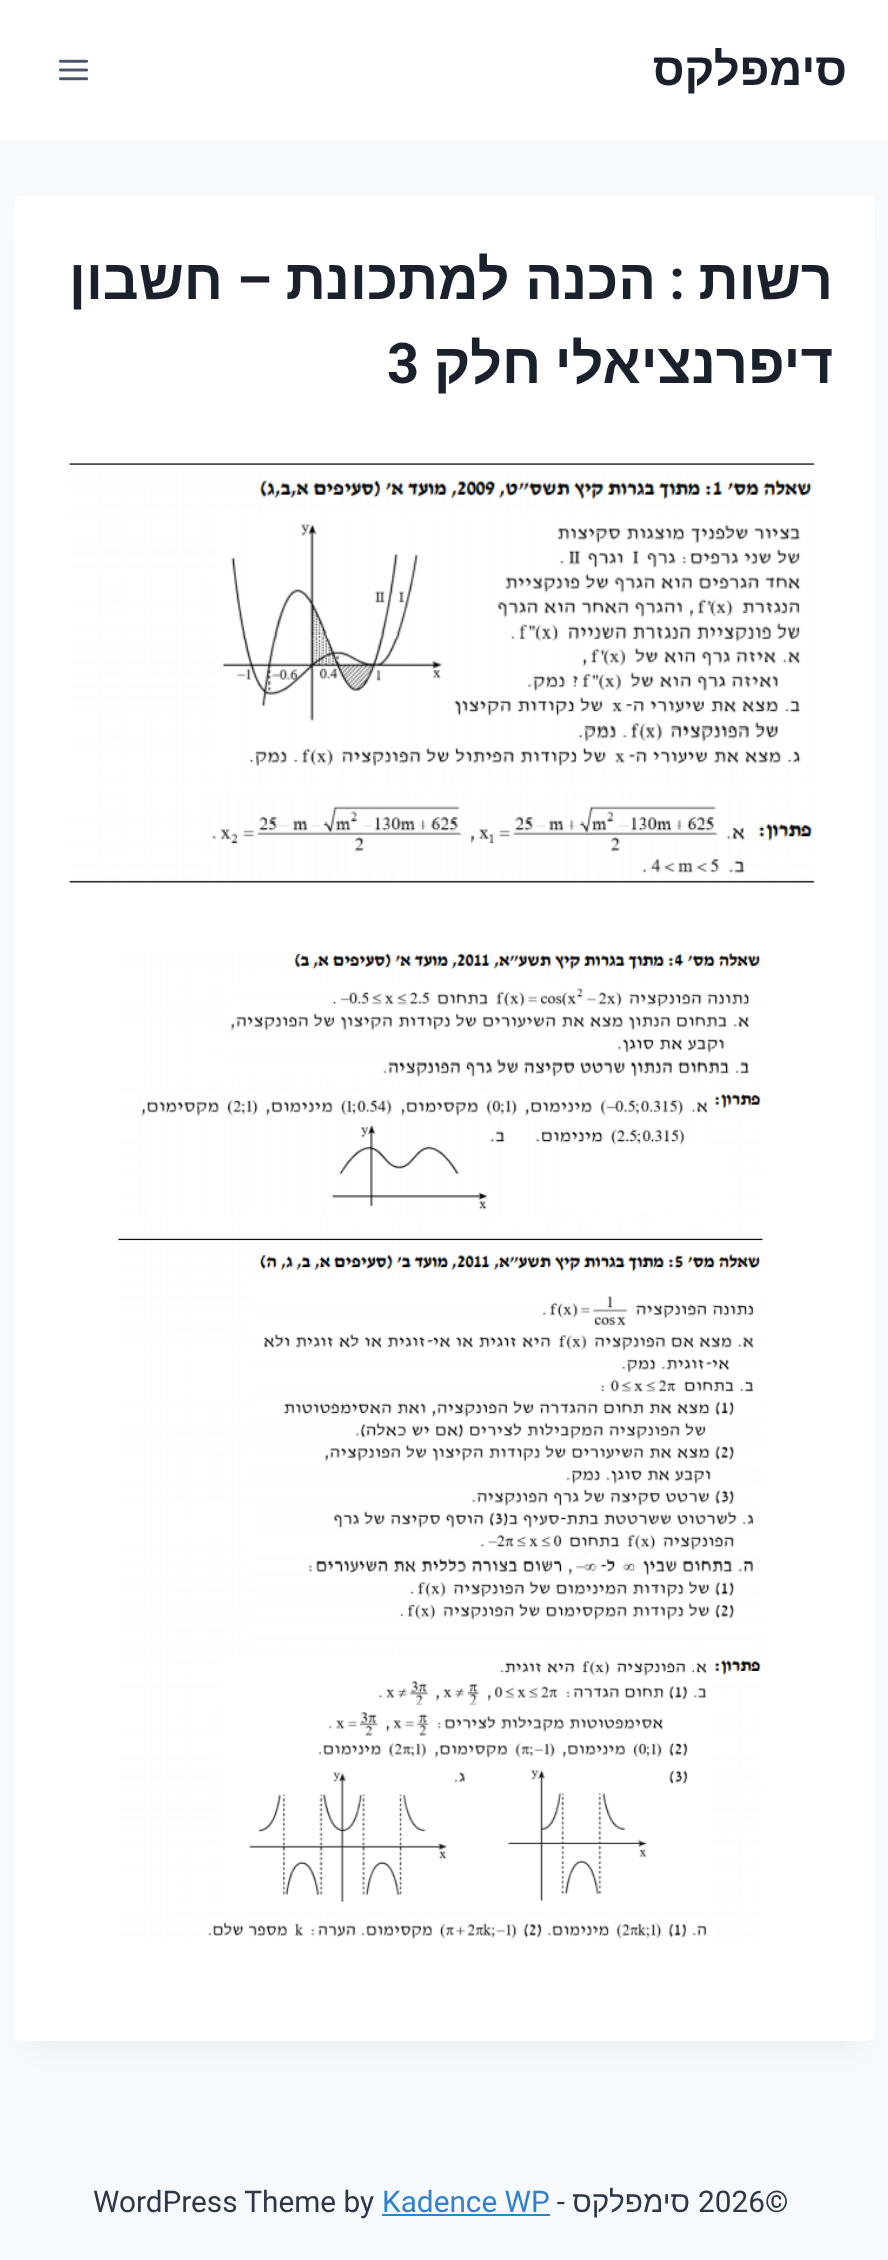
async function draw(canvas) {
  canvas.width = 888
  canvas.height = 2260
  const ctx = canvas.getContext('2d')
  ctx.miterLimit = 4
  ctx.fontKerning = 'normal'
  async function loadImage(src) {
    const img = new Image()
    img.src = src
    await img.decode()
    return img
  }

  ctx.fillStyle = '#f7fafc'
  ctx.fillRect(0, 0, 888, 2260)
  ctx.fillStyle = '#fff'
  ctx.fillRect(0, 0, 888, 140)
  ctx.direction = 'rtl'
  ctx.font = 'bold 45.5px Liberation Sans'
  ctx.fillStyle = '#1a202c'
  ctx.fillText('סימפלקס', 847, 85)
  ctx.drawImage(await loadImage('image0.png'), 58, 59, 31, 22)
  ctx.fillStyle = '#0000000d'
  ctx.filter = 'blur(13px)'
  ctx.beginPath()
  ctx.rect(32, 240, 826, 1809)
  ctx.fill()
  ctx.filter = 'none'
  ctx.fillStyle = '#fff'
  ctx.beginPath()
  ctx.roundRect(14, 196, 861, 1845, 7)
  ctx.fill()
  ctx.font = 'bold 56px Liberation Sans'
  ctx.fillStyle = '#1a202c'
  ctx.fillText('רשות', 833, 299)
  ctx.font = 'bold 56px Roboto'
  ctx.fillText(':', 685, 299)
  ctx.font = 'bold 56px Liberation Sans'
  ctx.fillText('הכנה למתכונת', 656, 299)
  ctx.font = 'bold 56px Roboto'
  ctx.fillText('–', 272, 299)
  ctx.font = 'bold 56px Liberation Sans'
  ctx.fillText('חשבון', 223, 299)
  ctx.wordSpacing = '-2px'
  ctx.fillText('דיפרנציאלי חלק', 833, 383)
  ctx.wordSpacing = '0px'
  ctx.direction = 'ltr'
  ctx.font = 'bold 56px Roboto'
  ctx.fillText('3', 387, 383)
  ctx.drawImage(await loadImage('image1.png'), 69, 463, 746, 420)
  ctx.drawImage(await loadImage('image2.png'), 118, 952, 645, 988)
  ctx.font = '29.75px Roboto'
  ctx.fillStyle = '#2d3748'
  ctx.fillText('2026©', 698, 2212)
  ctx.direction = 'rtl'
  ctx.font = '29.75px Liberation Sans'
  ctx.fillText('סימפלקס', 690, 2212)
  ctx.font = '29.75px Roboto'
  ctx.fillText('-', 565, 2212)
  ctx.direction = 'ltr'
  ctx.fillStyle = '#3182ce'
  ctx.fillText('Kadence WP', 382, 2212)
  ctx.fillRect(382, 2214, 168, 2)
  ctx.fillStyle = '#2d3748'
  ctx.fillText('WordPress Theme by', 93, 2212)
}

draw(document.querySelector('canvas'))
